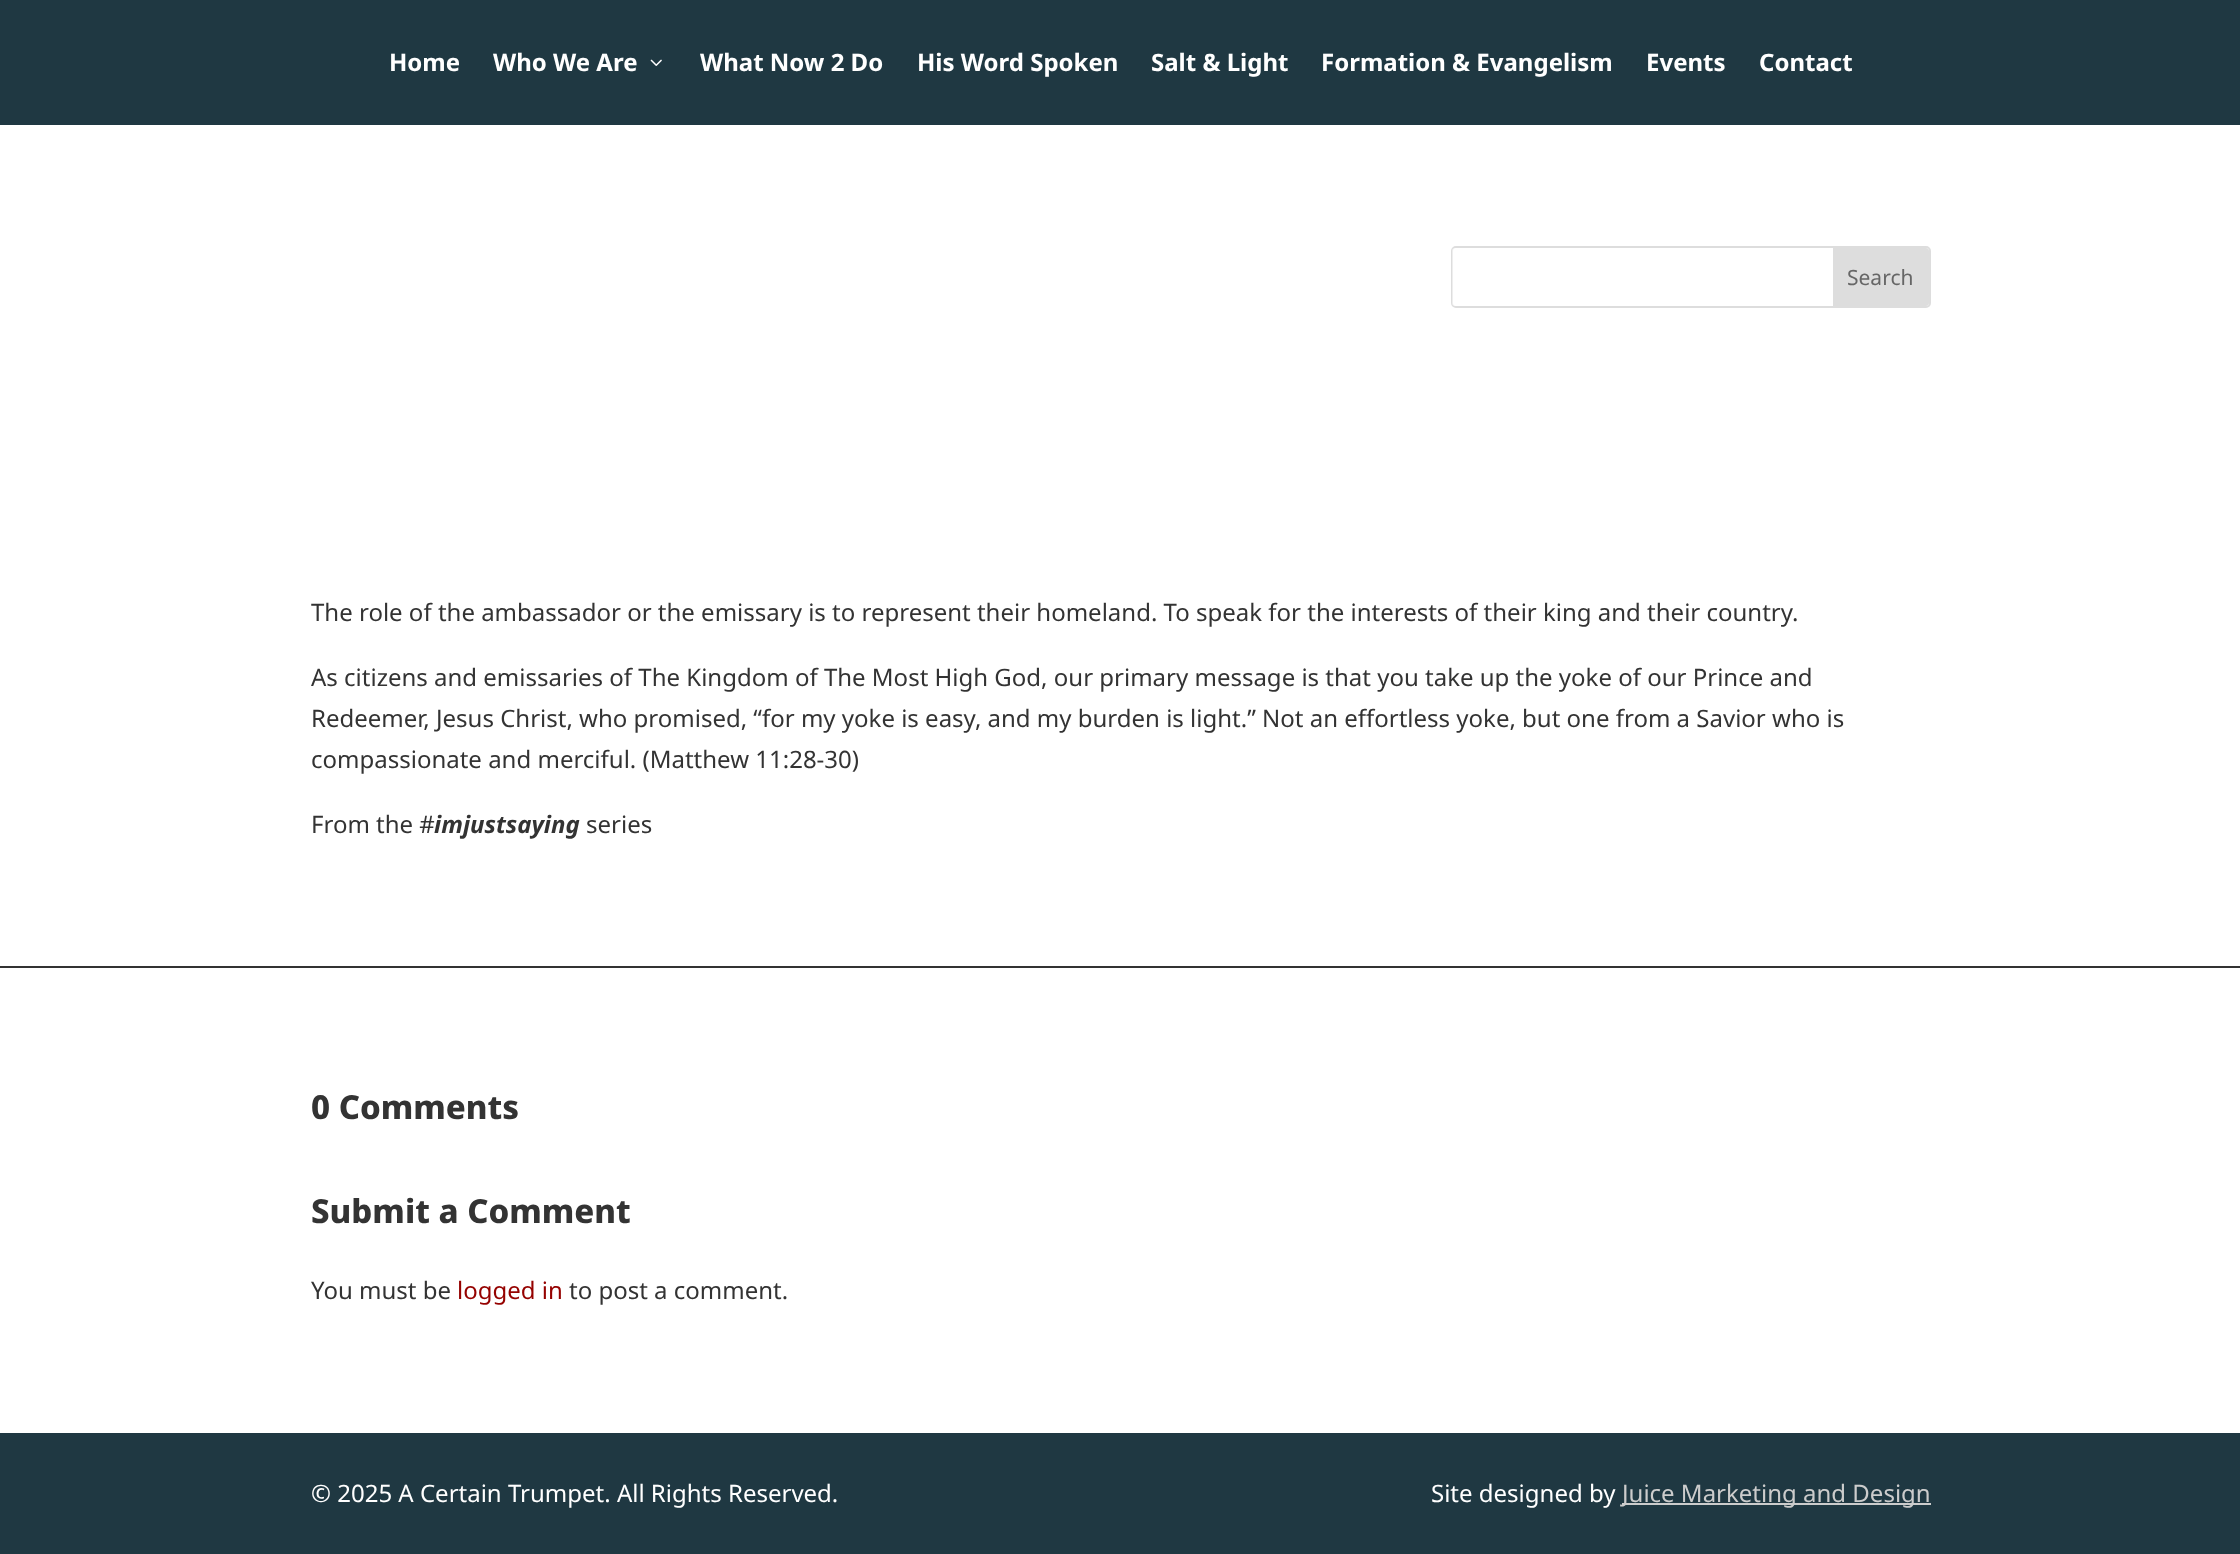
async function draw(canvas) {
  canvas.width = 2240
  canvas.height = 1554
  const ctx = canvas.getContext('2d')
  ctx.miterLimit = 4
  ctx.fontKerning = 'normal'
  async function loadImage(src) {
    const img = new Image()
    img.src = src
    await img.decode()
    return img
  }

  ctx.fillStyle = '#fff'
  ctx.fillRect(0, 0, 2240, 1554)
  ctx.fillStyle = '#1f3842'
  ctx.fillRect(0, 0, 2240, 125)
  ctx.font = 'bold 24px Noto Sans'
  ctx.fillStyle = '#fff'
  ctx.fillText('Home', 389, 71)
  ctx.fillText('Who We Are', 493, 71)
  ctx.drawImage(await loadImage('image0.png'), 650, 59, 12, 7)
  ctx.fillText('What Now 2 Do', 700, 71)
  ctx.fillText('His Word Spoken', 917, 71)
  ctx.fillText('Salt & Light', 1151, 71)
  ctx.fillText('Formation & Evangelism', 1321, 71)
  ctx.fillText('Events', 1646, 71)
  ctx.fillText('Contact', 1759, 71)
  ctx.beginPath()
  ctx.roundRect(1452, 247, 478, 60, 4)
  ctx.strokeStyle = '#ddd'
  ctx.lineWidth = 2
  ctx.stroke()
  ctx.fillStyle = '#ffffff80'
  ctx.beginPath()
  ctx.roundRect(1452, 248, 381, 58, [3, 0, 0, 3])
  ctx.fill()
  ctx.fillStyle = '#ddd'
  ctx.beginPath()
  ctx.roundRect(1833, 248, 96, 58, [0, 3, 3, 0])
  ctx.fill()
  ctx.font = '21px Noto Sans'
  ctx.fillStyle = '#666'
  ctx.fillText('Search', 1847, 285)
  ctx.font = '24px Noto Sans'
  ctx.fillStyle = '#333'
  ctx.fillText('The role of the ambassador or the emissary is to represent their homeland. To speak for the interests of their king and their country.', 311, 621)
  ctx.fillText('As citizens and emissaries of The Kingdom of The Most High God, our primary message is that you take up the yoke of our Prince and', 311, 686)
  ctx.fillText('Redeemer, Jesus Christ, who promised, “for my yoke is easy, and my burden is light.” Not an effortless yoke, but one from a Savior who is', 311, 727)
  ctx.fillText('compassionate and merciful. (Matthew 11:28-30)', 311, 768)
  ctx.fillText('From the #', 311, 833)
  ctx.font = 'italic bold 24px Noto Sans'
  ctx.fillText('imjustsaying', 434, 833)
  ctx.font = '24px Noto Sans'
  ctx.fillText('series', 586, 833)
  ctx.fillRect(0, 966, 2240, 2)
  ctx.font = '800 33px Noto Sans'
  ctx.fillText('0 Comments', 311, 1119)
  ctx.fillText('Submit a Comment', 311, 1223)
  ctx.font = '24px Noto Sans'
  ctx.fillText('You must be', 311, 1299)
  ctx.fillStyle = '#950200'
  ctx.fillText('logged in', 457, 1299)
  ctx.fillStyle = '#333'
  ctx.fillText('to post a comment.', 569, 1299)
  ctx.fillStyle = '#1f3842'
  ctx.fillRect(0, 1433, 2240, 121)
  ctx.fillStyle = '#fff'
  ctx.fillText('© 2025 A Certain Trumpet. All Rights Reserved.', 311, 1502)
  ctx.fillText('Site designed by', 1431, 1502)
  ctx.fillStyle = '#ccc'
  ctx.fillRect(1622, 1503, 309, 2)
  ctx.fillText('Juice Marketing and Design', 1622, 1502)
}

draw(document.querySelector('canvas'))
